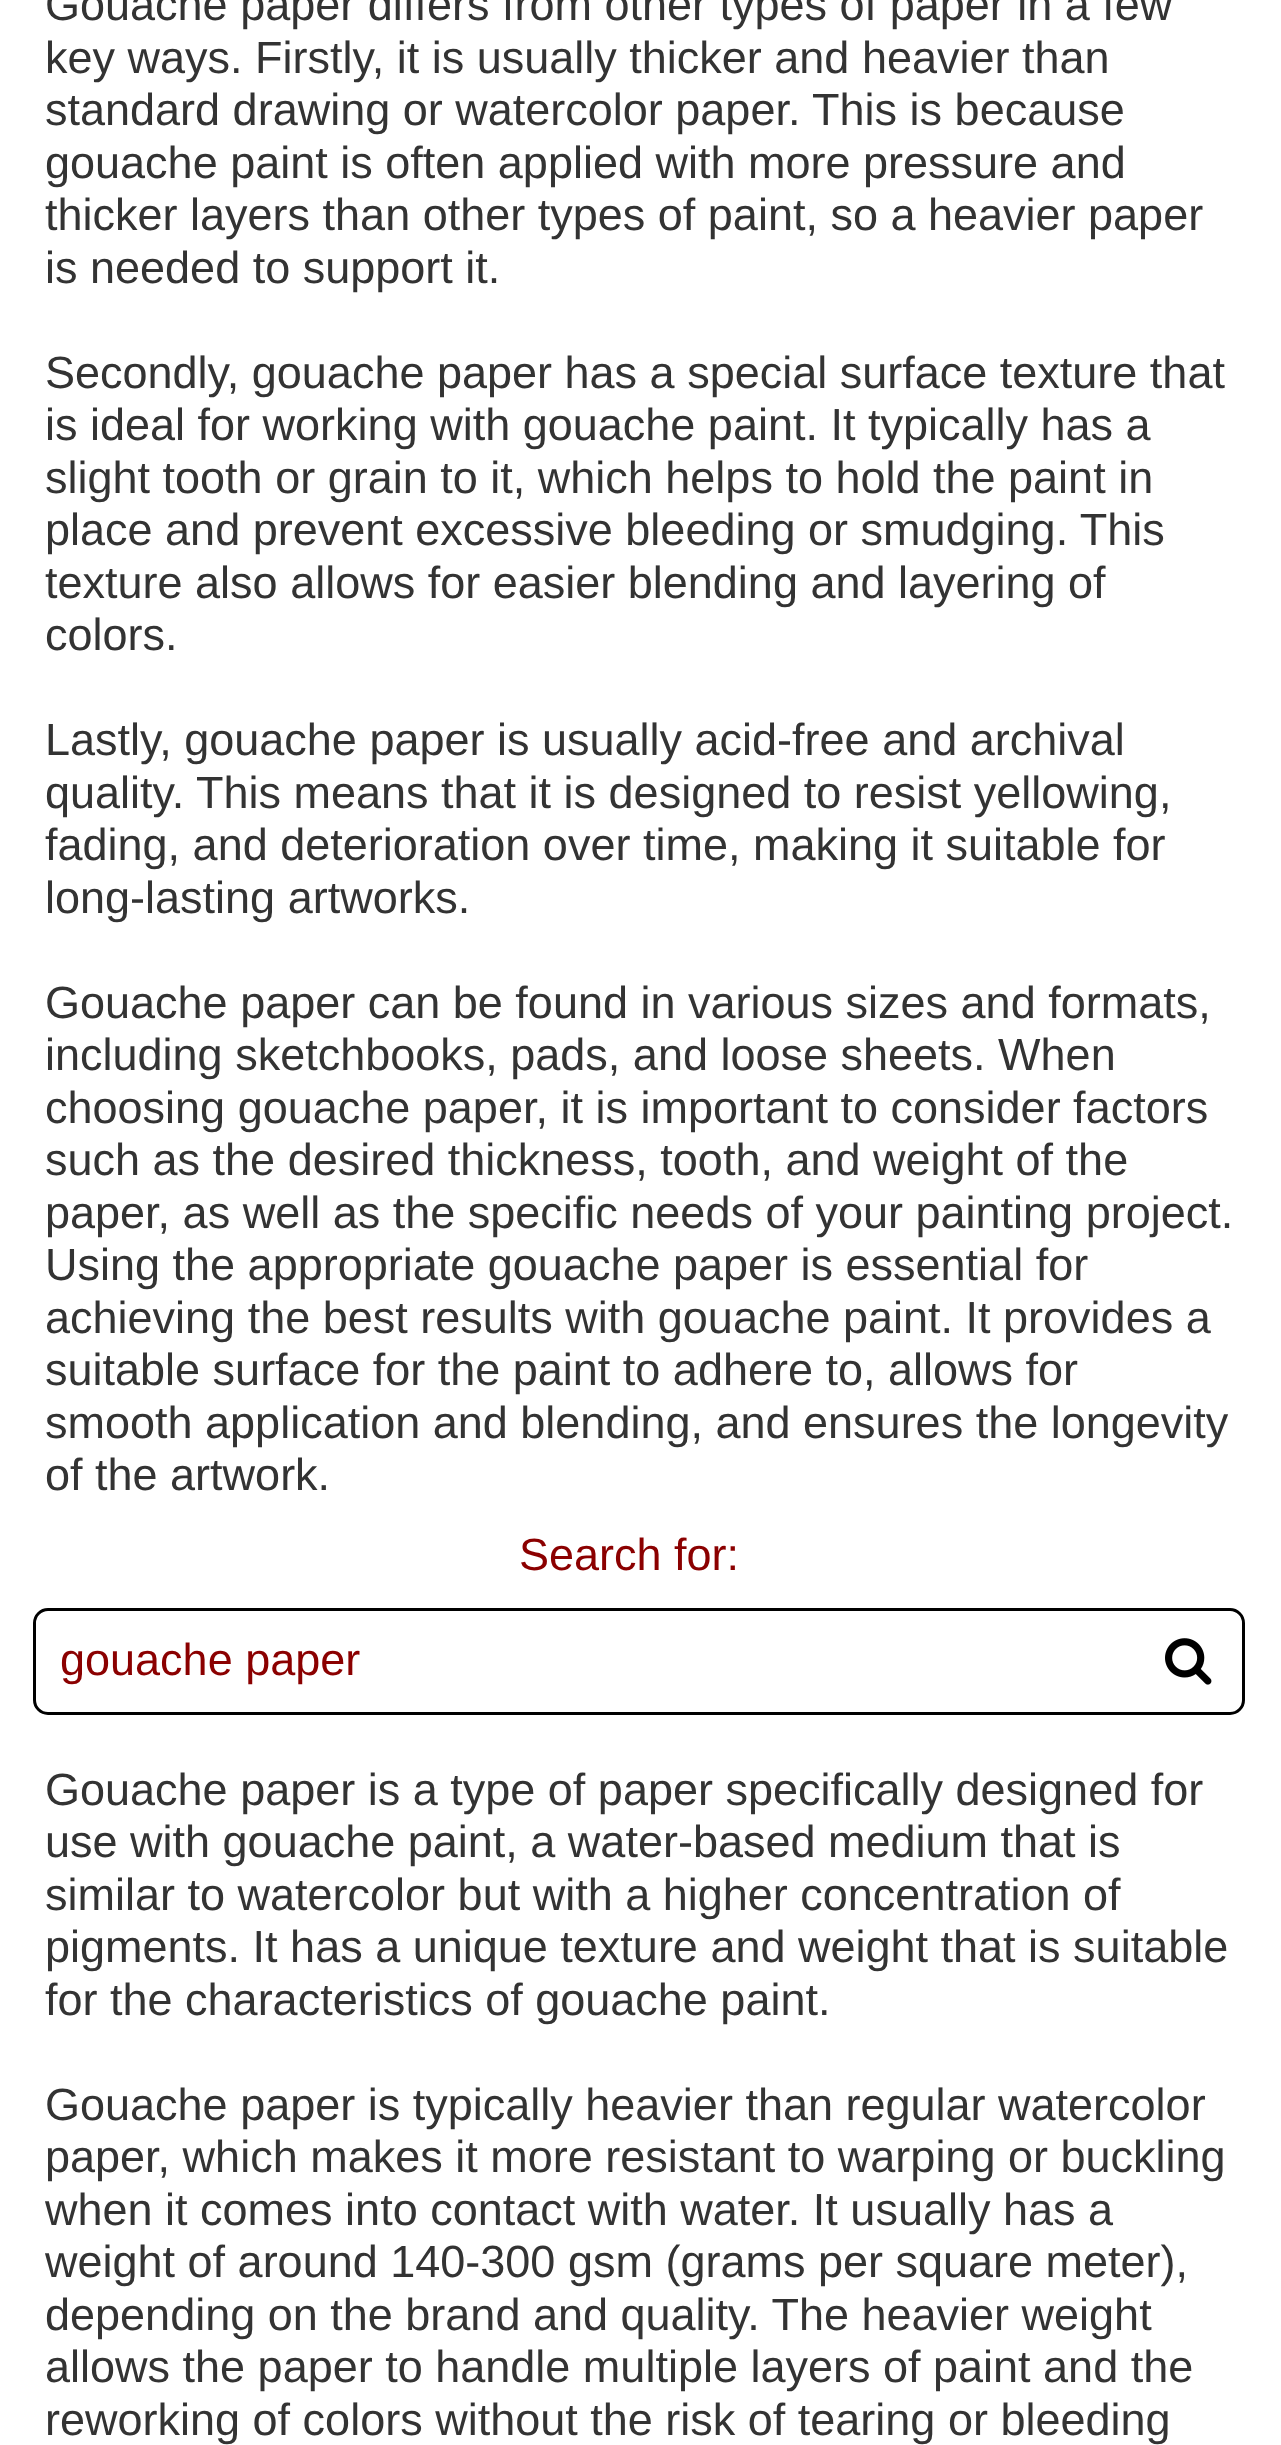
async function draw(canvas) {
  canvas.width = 1281
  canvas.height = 2445
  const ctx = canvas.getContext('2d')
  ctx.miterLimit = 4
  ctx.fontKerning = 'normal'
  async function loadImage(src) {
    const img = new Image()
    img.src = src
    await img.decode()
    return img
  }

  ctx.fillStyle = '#fff'
  ctx.fillRect(0, 0, 1281, 2445)
  ctx.font = '45px Liberation Sans'
  ctx.fillStyle = '#333'
  ctx.fillText('Gouache paper differs from other types of paper in a few', 45, 20)
  ctx.fillText('key ways. Firstly, it is usually thicker and heavier than', 45, 73)
  ctx.fillText('standard drawing or watercolor paper. This is because', 45, 125)
  ctx.fillText('gouache paint is often applied with more pressure and', 45, 178)
  ctx.fillText('thicker layers than other types of paint, so a heavier paper', 45, 230)
  ctx.fillText('is needed to support it.', 45, 283)
  ctx.fillText('Secondly, gouache paper has a special surface texture that', 45, 388)
  ctx.fillText('is ideal for working with gouache paint. It typically has a', 45, 440)
  ctx.fillText('slight tooth or grain to it, which helps to hold the paint in', 45, 493)
  ctx.fillText('place and prevent excessive bleeding or smudging. This', 45, 545)
  ctx.fillText('texture also allows for easier blending and layering of', 45, 598)
  ctx.fillText('colors.', 45, 650)
  ctx.fillText('Lastly, gouache paper is usually acid-free and archival', 45, 755)
  ctx.fillText('quality. This means that it is designed to resist yellowing,', 45, 808)
  ctx.fillText('fading, and deterioration over time, making it suitable for', 45, 860)
  ctx.fillText('long-lasting artworks.', 45, 913)
  ctx.fillText('Gouache paper can be found in various sizes and formats,', 45, 1018)
  ctx.fillText('including sketchbooks, pads, and loose sheets. When', 45, 1070)
  ctx.fillText('choosing gouache paper, it is important to consider factors', 45, 1123)
  ctx.fillText('such as the desired thickness, tooth, and weight of the', 45, 1175)
  ctx.fillText('paper, as well as the specific needs of your painting project.', 45, 1228)
  ctx.fillText('Using the appropriate gouache paper is essential for', 45, 1280)
  ctx.fillText('achieving the best results with gouache paint. It provides a', 45, 1333)
  ctx.fillText('suitable surface for the paint to adhere to, allows for', 45, 1385)
  ctx.fillText('smooth application and blending, and ensures the longevity', 45, 1438)
  ctx.fillText('of the artwork.', 45, 1490)
  ctx.fillStyle = '#8b0000'
  ctx.fillText('Search for:', 519, 1570)
  ctx.beginPath()
  ctx.roundRect(34.5, 1609.5, 1209, 104, 13.5)
  ctx.strokeStyle = '#000'
  ctx.lineWidth = 3
  ctx.stroke()
  ctx.fillText('gouache paper', 60, 1675)
  ctx.drawImage(await loadImage('image0.png'), 1165, 1638, 47, 47)
  ctx.fillStyle = '#333'
  ctx.fillText('Gouache paper is a type of paper specifically designed for', 45, 1805)
  ctx.fillText('use with gouache paint, a water-based medium that is', 45, 1857)
  ctx.fillText('similar to watercolor but with a higher concentration of', 45, 1910)
  ctx.fillText('pigments. It has a unique texture and weight that is suitable', 45, 1962)
  ctx.fillText('for the characteristics of gouache paint.', 45, 2015)
  ctx.fillText('Gouache paper is typically heavier than regular watercolor', 45, 2120)
  ctx.fillText('paper, which makes it more resistant to warping or buckling', 45, 2172)
  ctx.fillText('when it comes into contact with water. It usually has a', 45, 2225)
  ctx.fillText('weight of around 140-300 gsm (grams per square meter),', 45, 2277)
  ctx.fillText('depending on the brand and quality. The heavier weight', 45, 2330)
  ctx.fillText('allows the paper to handle multiple layers of paint and the', 45, 2382)
  ctx.fillText('reworking of colors without the risk of tearing or bleeding', 45, 2435)
}

draw(document.querySelector('canvas'))
